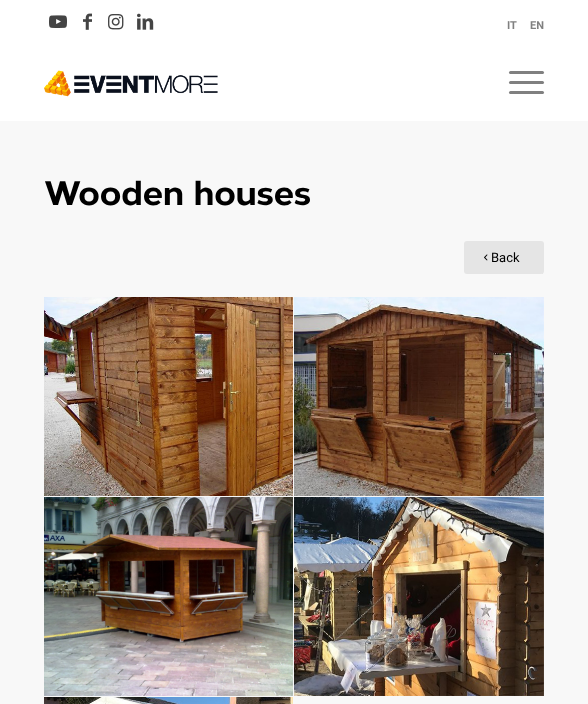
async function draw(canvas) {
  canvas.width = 588
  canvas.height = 704
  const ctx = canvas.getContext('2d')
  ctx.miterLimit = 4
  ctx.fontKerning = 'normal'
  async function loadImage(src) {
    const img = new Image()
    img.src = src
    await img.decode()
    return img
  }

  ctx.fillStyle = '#f8f8f8'
  ctx.fillRect(0, 0, 588, 704)
  ctx.fillStyle = '#fff'
  ctx.fillRect(0, 0, 588, 121)
  ctx.drawImage(await loadImage('image0.png'), 49, 15, 18, 13)
  ctx.drawImage(await loadImage('image1.png'), 83, 13, 9, 17)
  ctx.drawImage(await loadImage('image2.png'), 108, 14, 16, 16)
  ctx.drawImage(await loadImage('image3.png'), 137, 13, 17, 17)
  ctx.font = 'bold 11px Roboto'
  ctx.fillStyle = '#808080'
  ctx.fillText('IT', 507, 29)
  ctx.fillText('EN', 530, 29)
  ctx.drawImage(await loadImage('image4.png'), 44, 70, 174, 27)
  ctx.beginPath()
  ctx.roundRect(509, 81, 35, 3, 1.5)
  ctx.fill()
  ctx.beginPath()
  ctx.roundRect(509, 71, 35, 3, 1.5)
  ctx.fill()
  ctx.beginPath()
  ctx.roundRect(509, 91, 35, 3, 1.5)
  ctx.fill()
  ctx.font = '800 34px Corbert'
  ctx.fillStyle = '#000'
  ctx.fillText('Wooden houses', 44, 205)
  ctx.fillStyle = '#e5e5e5'
  ctx.beginPath()
  ctx.roundRect(464, 241, 80, 33, 3)
  ctx.fill()
  ctx.fillRect(542, 273, 1, 1)
  ctx.drawImage(await loadImage('image5.png'), 484, 254, 4, 7)
  ctx.font = '13px Roboto'
  ctx.fillStyle = '#000'
  ctx.fillText('Back', 491, 262)
  ctx.drawImage(await loadImage('image6.png'), 44, 297, 249, 199)
  ctx.drawImage(await loadImage('image7.png'), 294, 297, 250, 199)
  ctx.drawImage(await loadImage('image8.png'), 44, 497, 249, 199)
  ctx.drawImage(await loadImage('image9.png'), 294, 497, 250, 199)
  ctx.drawImage(await loadImage('image10.png'), 44, 697, 249, 7)
}

draw(document.querySelector('canvas'))
